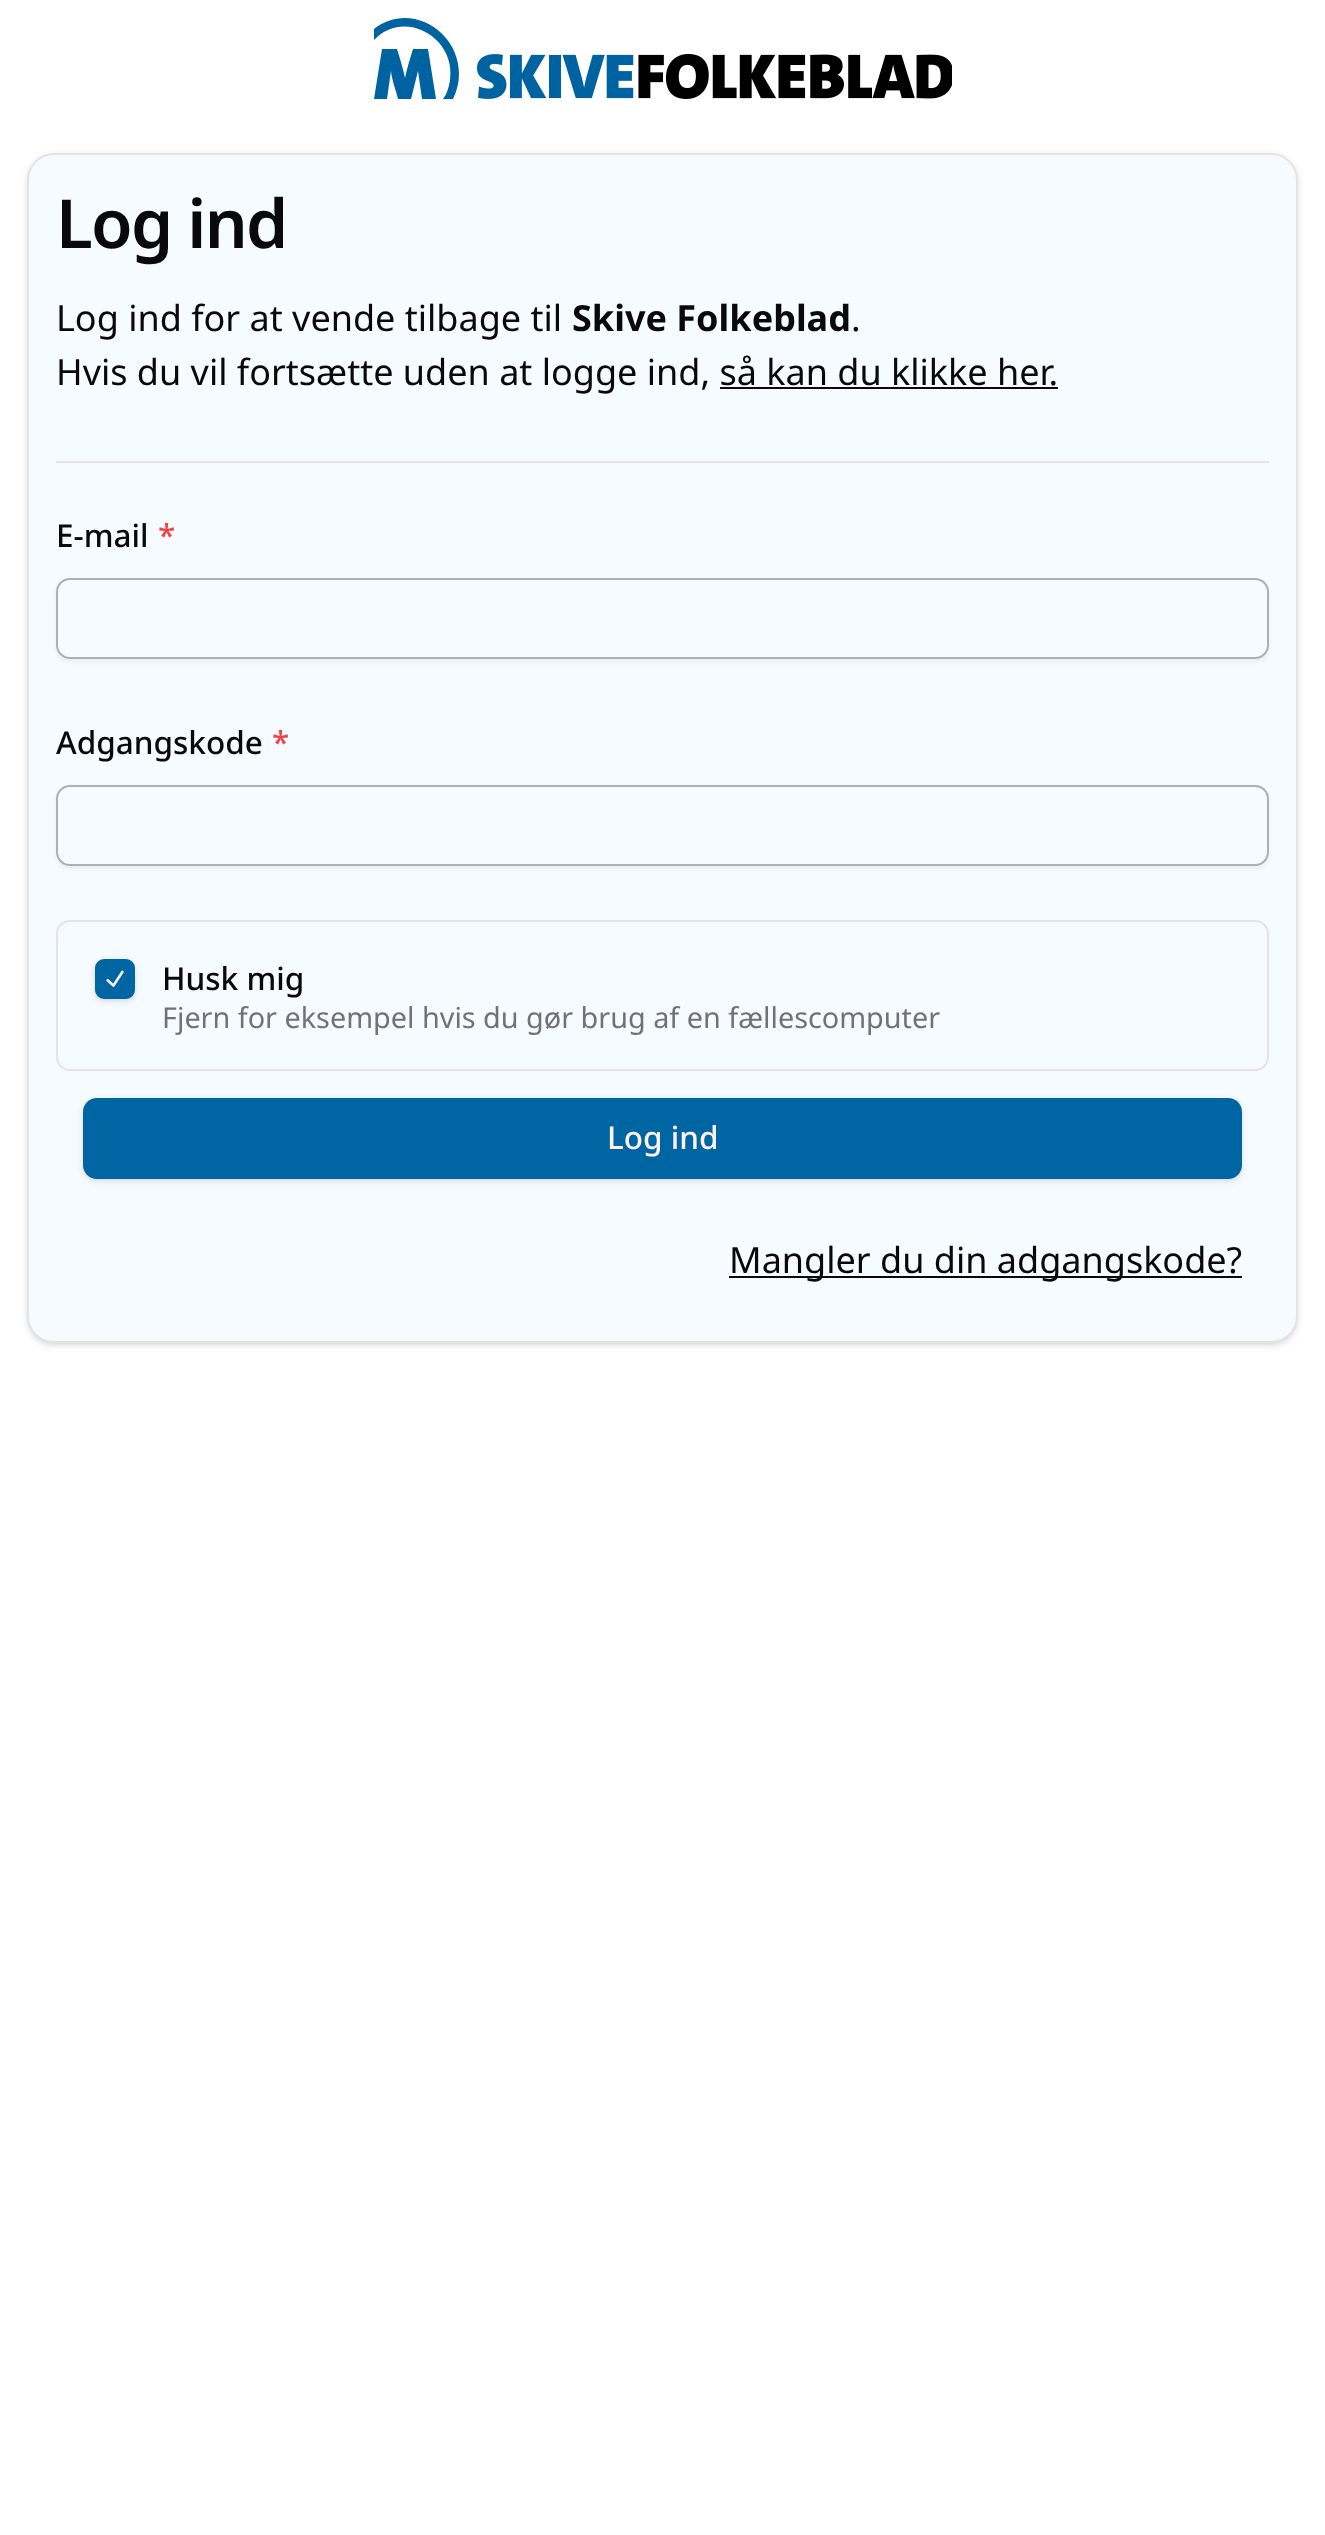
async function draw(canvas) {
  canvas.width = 1325
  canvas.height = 2535
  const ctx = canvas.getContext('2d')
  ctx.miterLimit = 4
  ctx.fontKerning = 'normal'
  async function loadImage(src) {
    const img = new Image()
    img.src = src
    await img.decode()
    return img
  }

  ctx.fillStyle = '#fff'
  ctx.fillRect(0, 0, 1325, 2535)
  ctx.fillStyle = '#0063a1'
  ctx.beginPath()
  ctx.moveTo(436, 99)
  ctx.lineTo(422, 99)
  ctx.lineTo(418, 71)
  ctx.lineTo(411, 99)
  ctx.lineTo(398, 99)
  ctx.bezierCurveTo(396, 90, 392, 81, 391, 71)
  ctx.lineTo(387, 99)
  ctx.lineTo(374, 99)
  ctx.lineTo(382, 49)
  ctx.lineTo(397, 49)
  ctx.bezierCurveTo(400, 59, 403, 68, 405, 78)
  ctx.bezierCurveTo(407, 68, 410, 59, 413, 49)
  ctx.lineTo(428, 49)
  ctx.closePath()
  ctx.fill()
  ctx.beginPath()
  ctx.moveTo(459, 74)
  ctx.bezierCurveTo(459, 82, 457, 91, 453, 99)
  ctx.lineTo(443, 99)
  ctx.bezierCurveTo(447, 94, 449, 87, 450, 80)
  ctx.bezierCurveTo(456, 38, 405, 8, 374, 40)
  ctx.lineTo(374, 29)
  ctx.bezierCurveTo(409, 1, 459, 30, 459, 74)
  ctx.closePath()
  ctx.fill()
  ctx.drawImage(await loadImage('image0.png'), 477, 54, 475, 45)
  ctx.fillStyle = '#0000001a'
  ctx.filter = 'blur(2px)'
  ctx.beginPath()
  ctx.roundRect(29, 158, 1267, 1185, 25)
  ctx.fill()
  ctx.filter = 'none'
  ctx.filter = 'blur(3.5px)'
  ctx.beginPath()
  ctx.roundRect(27, 155, 1271, 1191, 27)
  ctx.fill()
  ctx.filter = 'none'
  ctx.fillStyle = '#f5fbff'
  ctx.beginPath()
  ctx.roundRect(28, 154, 1269, 1188, 26)
  ctx.fill()
  ctx.strokeStyle = '#e4e4e7'
  ctx.lineWidth = 2
  ctx.stroke()
  ctx.letterSpacing = '-1.75px'
  ctx.font = '600 67.5px Noto Sans'
  ctx.fillStyle = '#09090b'
  ctx.fillText('Log ind', 56, 248)
  ctx.letterSpacing = '0px'
  ctx.font = '36px Noto Sans'
  ctx.fillText('Log ind for at vende tilbage til', 56, 331)
  ctx.font = 'bold 36px Noto Sans'
  ctx.fillText('Skive Folkeblad', 572, 331)
  ctx.font = '36px Noto Sans'
  ctx.fillText('.', 851, 331)
  ctx.fillText('Hvis du vil fortsætte uden at logge ind, så kan du klikke her.', 56, 385)
  ctx.fillRect(720, 387, 338, 2)
  ctx.fillStyle = '#e4e4e7'
  ctx.fillRect(56, 461, 1213, 2)
  ctx.font = '500 31.5px Noto Sans'
  ctx.fillStyle = '#09090b'
  ctx.fillText('E-mail', 56, 547)
  ctx.fillStyle = '#ef4444'
  ctx.fillText('*', 158, 547)
  ctx.save()
  ctx.beginPath()
  ctx.moveTo(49, 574)
  ctx.lineTo(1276, 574)
  ctx.lineTo(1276, 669)
  ctx.lineTo(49, 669)
  ctx.closePath()
  ctx.moveTo(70, 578)
  ctx.lineTo(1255, 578)
  ctx.bezierCurveTo(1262.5, 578, 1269, 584.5, 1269, 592)
  ctx.lineTo(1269, 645)
  ctx.bezierCurveTo(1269, 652.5, 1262.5, 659, 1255, 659)
  ctx.lineTo(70, 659)
  ctx.bezierCurveTo(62.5, 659, 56, 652.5, 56, 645)
  ctx.lineTo(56, 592)
  ctx.bezierCurveTo(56, 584.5, 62.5, 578, 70, 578)
  ctx.closePath()
  ctx.clip('evenodd')
  ctx.fillStyle = '#0000000d'
  ctx.filter = 'blur(2px)'
  ctx.beginPath()
  ctx.roundRect(56, 581, 1213, 81, 14)
  ctx.fill()
  ctx.filter = 'none'
  ctx.restore()
  ctx.beginPath()
  ctx.roundRect(57, 579, 1211, 79, 13)
  ctx.strokeStyle = '#aeaeb7'
  ctx.stroke()
  ctx.fillStyle = '#09090b'
  ctx.fillText('Adgangskode', 56, 754)
  ctx.fillStyle = '#ef4444'
  ctx.fillText('*', 272, 754)
  ctx.save()
  ctx.beginPath()
  ctx.moveTo(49, 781)
  ctx.lineTo(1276, 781)
  ctx.lineTo(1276, 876)
  ctx.lineTo(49, 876)
  ctx.closePath()
  ctx.moveTo(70, 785)
  ctx.lineTo(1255, 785)
  ctx.bezierCurveTo(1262.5, 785, 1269, 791.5, 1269, 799)
  ctx.lineTo(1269, 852)
  ctx.bezierCurveTo(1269, 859.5, 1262.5, 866, 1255, 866)
  ctx.lineTo(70, 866)
  ctx.bezierCurveTo(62.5, 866, 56, 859.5, 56, 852)
  ctx.lineTo(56, 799)
  ctx.bezierCurveTo(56, 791.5, 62.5, 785, 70, 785)
  ctx.closePath()
  ctx.clip('evenodd')
  ctx.fillStyle = '#0000000d'
  ctx.filter = 'blur(2px)'
  ctx.beginPath()
  ctx.roundRect(56, 788, 1213, 81, 14)
  ctx.fill()
  ctx.filter = 'none'
  ctx.restore()
  ctx.beginPath()
  ctx.roundRect(57, 786, 1211, 79, 13)
  ctx.stroke()
  ctx.beginPath()
  ctx.roundRect(57, 921, 1211, 149, 13)
  ctx.strokeStyle = '#e4e4e7'
  ctx.stroke()
  ctx.fillStyle = '#0000001a'
  ctx.filter = 'blur(2px)'
  ctx.beginPath()
  ctx.roundRect(97, 963, 36, 36, 7)
  ctx.fill()
  ctx.filter = 'none'
  ctx.filter = 'blur(3.5px)'
  ctx.beginPath()
  ctx.roundRect(95, 961, 40, 40, 9)
  ctx.fill()
  ctx.filter = 'none'
  ctx.fillStyle = '#0065a3'
  ctx.beginPath()
  ctx.roundRect(96, 960, 38, 38, 8)
  ctx.fill()
  ctx.strokeStyle = '#0065a3'
  ctx.stroke()
  ctx.drawImage(await loadImage('image1.png'), 106, 970, 18, 17)
  ctx.fillStyle = '#09090b'
  ctx.fillText('Husk mig', 162, 990)
  ctx.font = '28.8px Noto Sans'
  ctx.fillStyle = '#71717a'
  ctx.fillText('Fjern for eksempel hvis du gør brug af en fællescomputer', 162, 1028)
  ctx.fillStyle = '#0000001a'
  ctx.filter = 'blur(2px)'
  ctx.beginPath()
  ctx.roundRect(86, 1103, 1154, 76, 11)
  ctx.fill()
  ctx.filter = 'none'
  ctx.filter = 'blur(3.5px)'
  ctx.beginPath()
  ctx.roundRect(83, 1100, 1159, 81, 14)
  ctx.fill()
  ctx.filter = 'none'
  ctx.fillStyle = '#0065a3'
  ctx.beginPath()
  ctx.roundRect(83, 1098, 1159, 81, 14)
  ctx.fill()
  ctx.font = '500 31.5px Noto Sans'
  ctx.fillStyle = '#fff1f2'
  ctx.fillText('Log ind', 607, 1149)
  ctx.fillStyle = '#09090b'
  ctx.fillRect(729, 1276, 513, 2)
  ctx.font = '36px Noto Sans'
  ctx.fillText('Mangler du din adgangskode?', 729, 1273)
}

draw(document.querySelector('canvas'))
